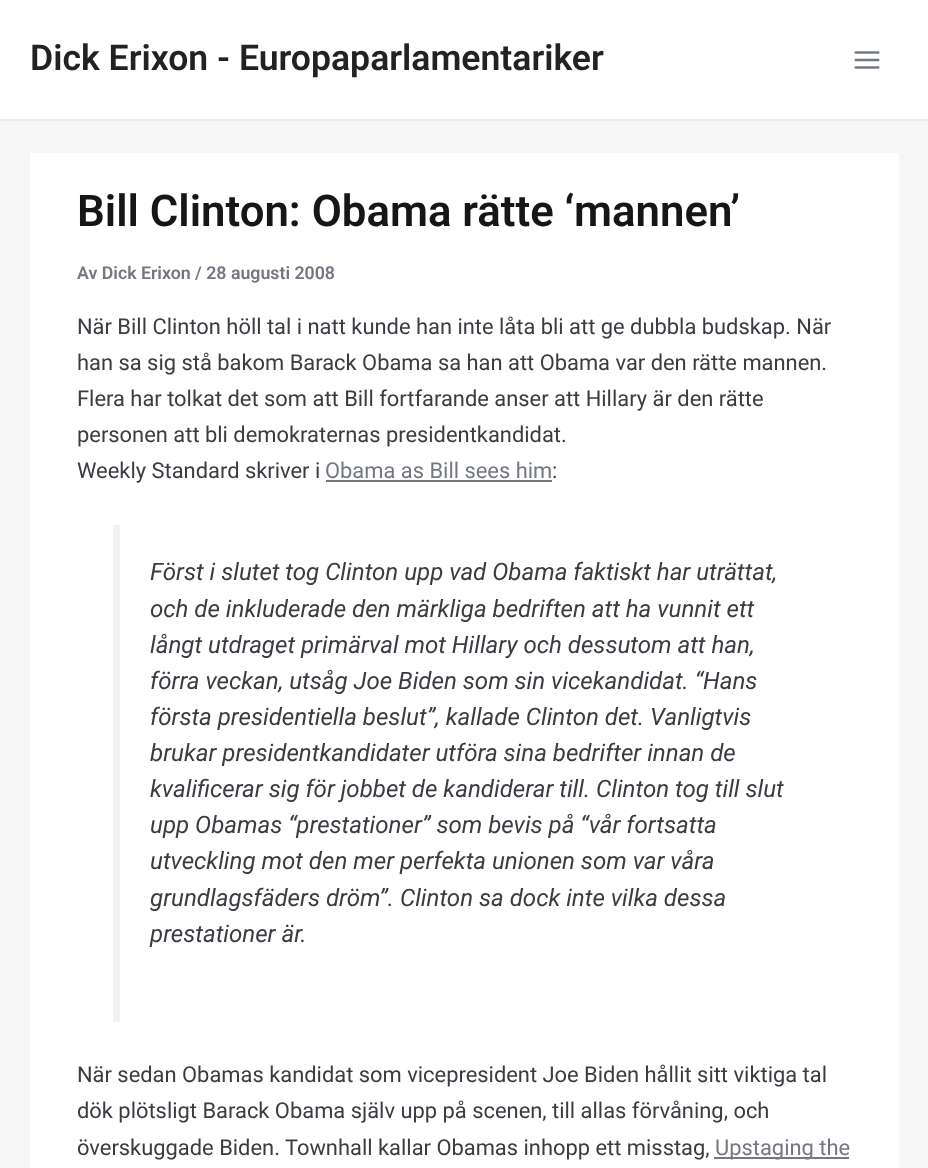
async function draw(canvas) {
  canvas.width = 928
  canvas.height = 1168
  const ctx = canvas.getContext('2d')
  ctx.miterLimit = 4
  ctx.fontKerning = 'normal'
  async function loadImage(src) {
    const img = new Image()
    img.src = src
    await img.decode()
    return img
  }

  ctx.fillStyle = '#f6f6f6'
  ctx.fillRect(0, 0, 928, 1168)
  ctx.fillStyle = '#fff'
  ctx.fillRect(0, 0, 928, 119)
  ctx.fillStyle = '#eaeaea'
  ctx.fillRect(0, 119, 928, 2)
  ctx.font = '600 35.6px Roboto'
  ctx.fillStyle = '#222'
  ctx.fillText('Dick Erixon - Europaparlamentariker', 30, 70)
  ctx.drawImage(await loadImage('image0.png'), 854, 51, 26, 18)
  ctx.fillStyle = '#fff'
  ctx.fillRect(30, 153, 869, 1015)
  ctx.font = '600 43.75px Roboto'
  ctx.fillStyle = '#151616'
  ctx.fillText('Bill Clinton: Obama rätte ‘mannen’', 77, 226)
  ctx.font = '600 17.75px Roboto'
  ctx.fillStyle = '#737880'
  ctx.fillText('Av Dick Erixon / 28 augusti 2008', 77, 279)
  ctx.font = '21.9px Roboto'
  ctx.fillStyle = '#393c40'
  ctx.fillText('När Bill Clinton höll tal i natt kunde han inte låta bli att ge dubbla budskap. När', 77, 334)
  ctx.fillText('han sa sig stå bakom Barack Obama sa han att Obama var den rätte mannen.', 77, 370)
  ctx.fillText('Flera har tolkat det som att Bill fortfarande anser att Hillary är den rätte', 77, 406)
  ctx.fillText('personen att bli demokraternas presidentkandidat.', 77, 442)
  ctx.fillText('Weekly Standard skriver i', 77, 478)
  ctx.fillStyle = '#737880'
  ctx.fillText('Obama as Bill sees him', 325, 478)
  ctx.fillRect(326, 480, 226, 2)
  ctx.fillStyle = '#393c40'
  ctx.fillText(':', 552, 478)
  ctx.fillStyle = '#f2f2f2'
  ctx.fillRect(113, 525, 7, 497)
  ctx.font = 'italic 24.1px Roboto'
  ctx.fillStyle = '#393c40'
  ctx.fillText('Först i slutet tog Clinton upp vad Obama faktiskt har uträttat,', 150, 580)
  ctx.fillText('och de inkluderade den märkliga bedriften att ha vunnit ett', 150, 617)
  ctx.fillText('långt utdraget primärval mot Hillary och dessutom att han,', 150, 653)
  ctx.fillText('förra veckan, utsåg Joe Biden som sin vicekandidat. “Hans', 150, 689)
  ctx.fillText('första presidentiella beslut”, kallade Clinton det. Vanligtvis', 150, 725)
  ctx.fillText('brukar presidentkandidater utföra sina bedrifter innan de', 150, 761)
  ctx.fillText('kvalificerar sig för jobbet de kandiderar till. Clinton tog till slut', 150, 797)
  ctx.fillText('upp Obamas “prestationer” som bevis på “vår fortsatta', 150, 833)
  ctx.fillText('utveckling mot den mer perfekta unionen som var våra', 150, 869)
  ctx.fillText('grundlagsfäders dröm”. Clinton sa dock inte vilka dessa', 150, 906)
  ctx.fillText('prestationer är.', 150, 942)
  ctx.font = '21.9px Roboto'
  ctx.fillText('När sedan Obamas kandidat som vicepresident Joe Biden hållit sitt viktiga tal', 77, 1082)
  ctx.fillText('dök plötsligt Barack Obama själv upp på scenen, till allas förvåning, och', 77, 1118)
  ctx.fillText('överskuggade Biden. Townhall kallar Obamas inhopp ett misstag,', 77, 1155)
  ctx.fillStyle = '#737880'
  ctx.fillRect(714, 1157, 135, 2)
  ctx.fillText('Upstaging the', 715, 1155)
}

draw(document.querySelector('canvas'))
